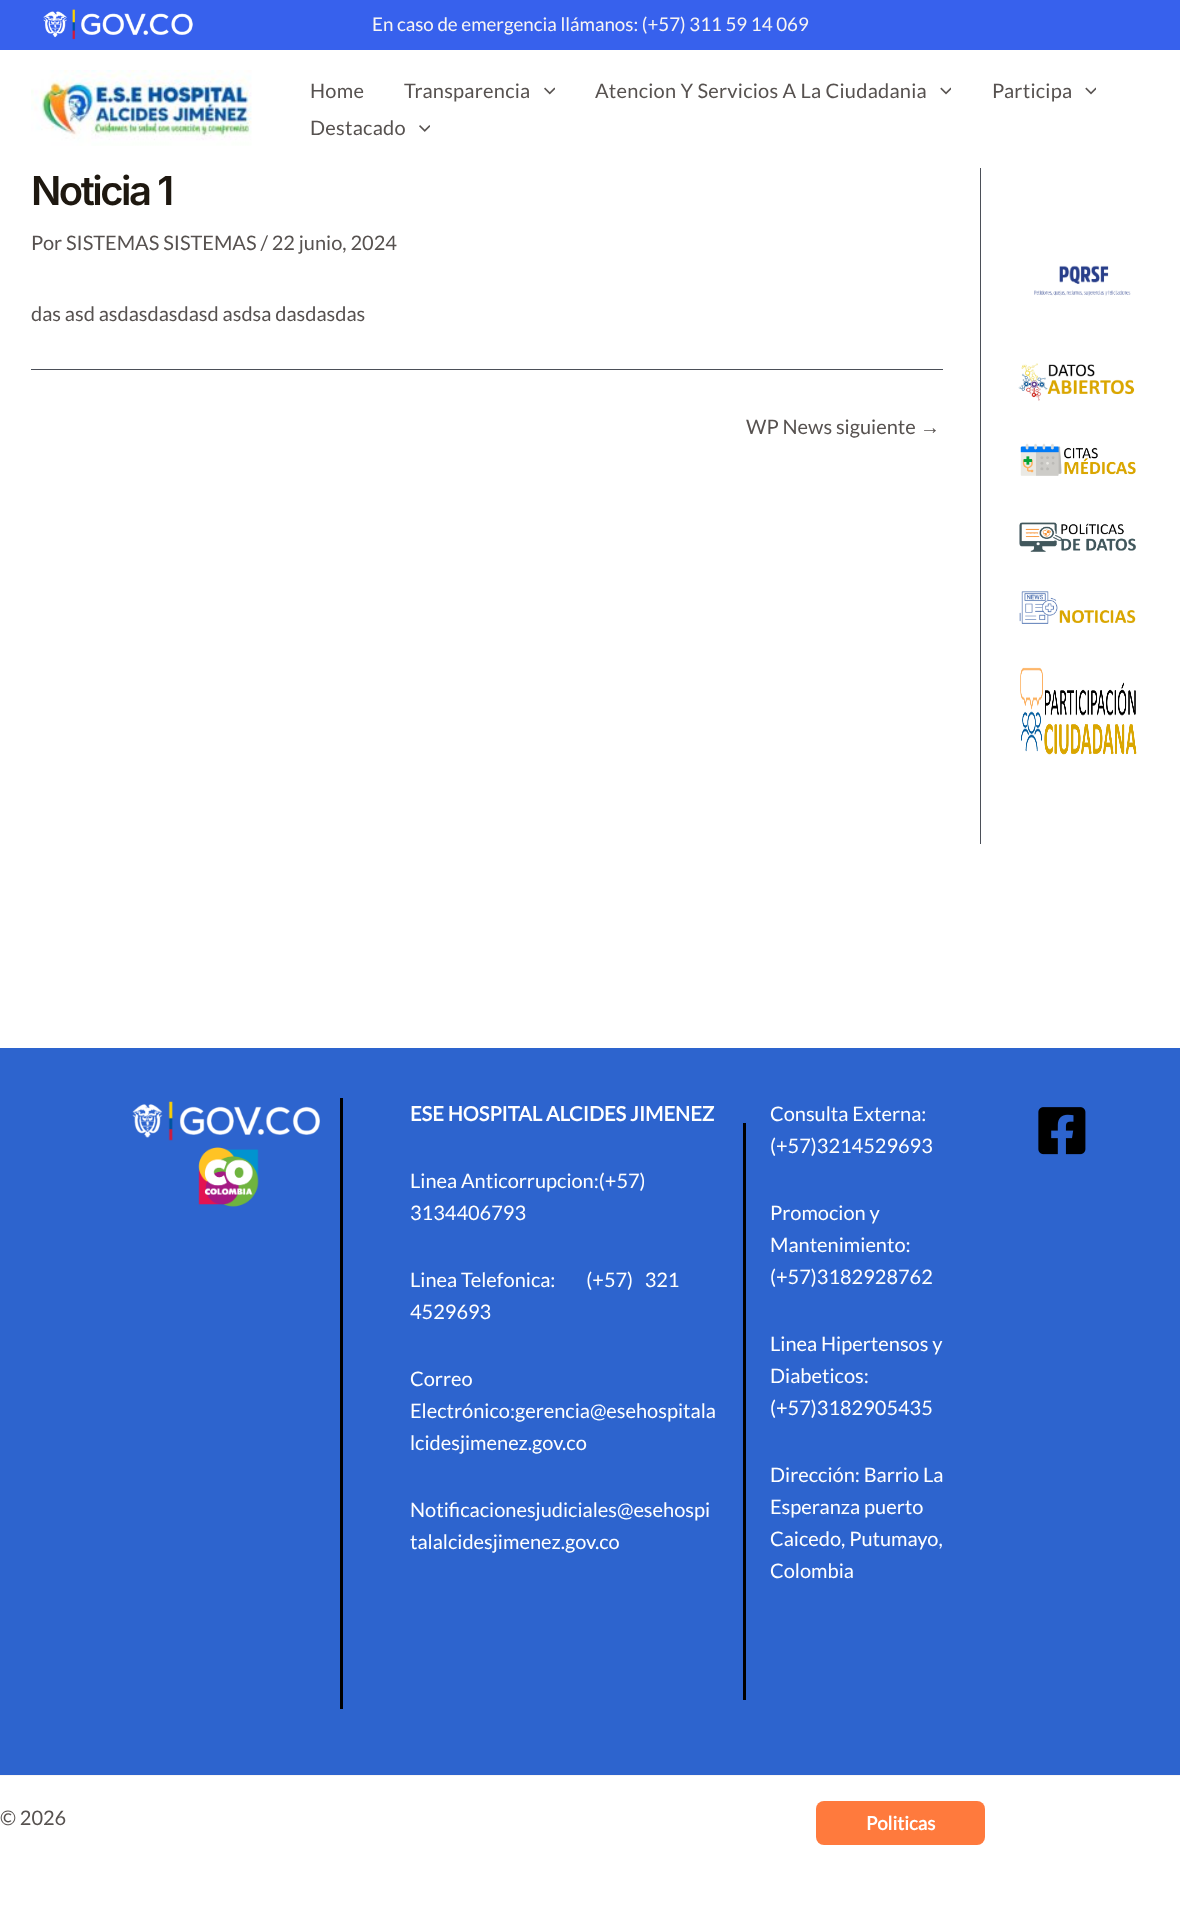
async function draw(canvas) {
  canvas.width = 1180
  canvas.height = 1926
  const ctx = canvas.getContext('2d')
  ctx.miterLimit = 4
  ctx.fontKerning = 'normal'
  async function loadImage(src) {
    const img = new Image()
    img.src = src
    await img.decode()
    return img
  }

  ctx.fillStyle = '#fff'
  ctx.fillRect(0, 0, 1180, 1926)
  ctx.fillStyle = '#3761ed'
  ctx.fillRect(0, 0, 1180, 50)
  ctx.drawImage(await loadImage('image0.png'), 43, 9, 150, 31)
  ctx.font = '18.75px Lato'
  ctx.fillStyle = '#f8f5f4'
  ctx.fillText('En caso de emergencia llámanos: (+57) 311 59 14 069', 372, 31)
  ctx.drawImage(await loadImage('image1.png'), 31, 70, 221, 76)
  ctx.letterSpacing = '0.25px'
  ctx.font = '20px Lato'
  ctx.fillStyle = '#575250'
  ctx.fillText('Home', 310, 98)
  ctx.fillText('Transparencia', 404, 98)
  ctx.drawImage(await loadImage('image2.png'), 544, 87, 11, 8)
  ctx.fillText('Atencion Y Servicios A La Ciudadania', 595, 98)
  ctx.drawImage(await loadImage('image3.png'), 940, 87, 11, 8)
  ctx.fillText('Participa', 992, 98)
  ctx.drawImage(await loadImage('image3.png'), 1085, 87, 11, 8)
  ctx.fillText('Destacado', 310, 135)
  ctx.drawImage(await loadImage('image4.png'), 419, 125, 11, 7)
  ctx.fillStyle = '#4b4f58'
  ctx.fillRect(980, 168, 1, 676)
  ctx.letterSpacing = '-2.5px'
  ctx.font = '600 40px Inter'
  ctx.fillStyle = '#1e1810'
  ctx.fillText('Noticia 1', 31, 205)
  ctx.letterSpacing = '0px'
  ctx.font = '20px Lato'
  ctx.fillStyle = '#575250'
  ctx.fillText('Por SISTEMAS SISTEMAS / 22 junio, 2024', 31, 250)
  ctx.fillText('das asd asdasdasdasd asdsa dasdasdas', 31, 321)
  ctx.fillStyle = '#4b4f58'
  ctx.fillRect(31, 369, 912, 1)
  ctx.fillStyle = '#575250'
  ctx.fillText('WP News siguiente', 746, 434)
  ctx.font = '20px Liberation Sans'
  ctx.fillText('→', 920, 434)
  ctx.drawImage(await loadImage('image5.png'), 1034, 265, 97, 31)
  ctx.drawImage(await loadImage('image6.png'), 1018, 363, 117, 38)
  ctx.drawImage(await loadImage('image7.png'), 1020, 443, 116, 33)
  ctx.drawImage(await loadImage('image8.png'), 1019, 522, 117, 30)
  ctx.drawImage(await loadImage('image9.png'), 1019, 591, 117, 33)
  ctx.drawImage(await loadImage('image10.png'), 1020, 667, 117, 88)
  ctx.fillStyle = '#2d64ce'
  ctx.fillRect(0, 1048, 1180, 727)
  ctx.drawImage(await loadImage('image11.png'), 132, 1101, 188, 40)
  ctx.drawImage(await loadImage('image12.png'), 198, 1147, 61, 60)
  ctx.fillStyle = '#000'
  ctx.fillRect(340, 1098, 3, 611)
  ctx.font = 'bold 20px Lato'
  ctx.fillStyle = '#fff'
  ctx.fillText('ESE HOSPITAL ALCIDES JIMENEZ', 410, 1121)
  ctx.font = '20px Lato'
  ctx.fillText('Linea Anticorrupcion:(+57)', 410, 1188)
  ctx.fillText('3134406793', 410, 1220)
  ctx.fillText('Linea Telefonica:        (+57)   321', 410, 1287)
  ctx.fillText('4529693', 410, 1319)
  ctx.fillText('Correo', 410, 1386)
  ctx.fillText('Electrónico:gerencia@esehospitala', 410, 1418)
  ctx.fillText('lcidesjimenez.gov.co', 410, 1450)
  ctx.fillText('Notificacionesjudiciales@esehospi', 410, 1517)
  ctx.fillText('talalcidesjimenez.gov.co', 410, 1549)
  ctx.fillStyle = '#000'
  ctx.fillRect(743, 1123, 3, 577)
  ctx.fillStyle = '#fff'
  ctx.fillText('Consulta Externa:', 770, 1121)
  ctx.fillText('(+57)3214529693', 770, 1153)
  ctx.fillText('Promocion y', 770, 1220)
  ctx.fillText('Mantenimiento:', 770, 1252)
  ctx.fillText('(+57)3182928762', 770, 1284)
  ctx.fillText('Linea Hipertensos y', 770, 1351)
  ctx.fillText('Diabeticos:', 770, 1383)
  ctx.fillText('(+57)3182905435', 770, 1415)
  ctx.fillText('Dirección: Barrio La', 770, 1482)
  ctx.fillText('Esperanza puerto', 770, 1514)
  ctx.fillText('Caicedo, Putumayo,', 770, 1546)
  ctx.fillText('Colombia', 770, 1578)
  ctx.drawImage(await loadImage('image13.png'), 1038, 1107, 48, 48)
  ctx.fillStyle = '#f8f5f4'
  ctx.fillRect(0, 1775, 1180, 1)
  ctx.fillStyle = '#575250'
  ctx.fillText('© 2026', 0, 1825)
  ctx.fillStyle = '#ff7a3d'
  ctx.beginPath()
  ctx.roundRect(816, 1801, 169, 44, 8)
  ctx.fill()
  ctx.font = 'bold 18.75px Lato'
  ctx.fillStyle = '#fff'
  ctx.fillText('Politicas', 866, 1830)
}

draw(document.querySelector('canvas'))
